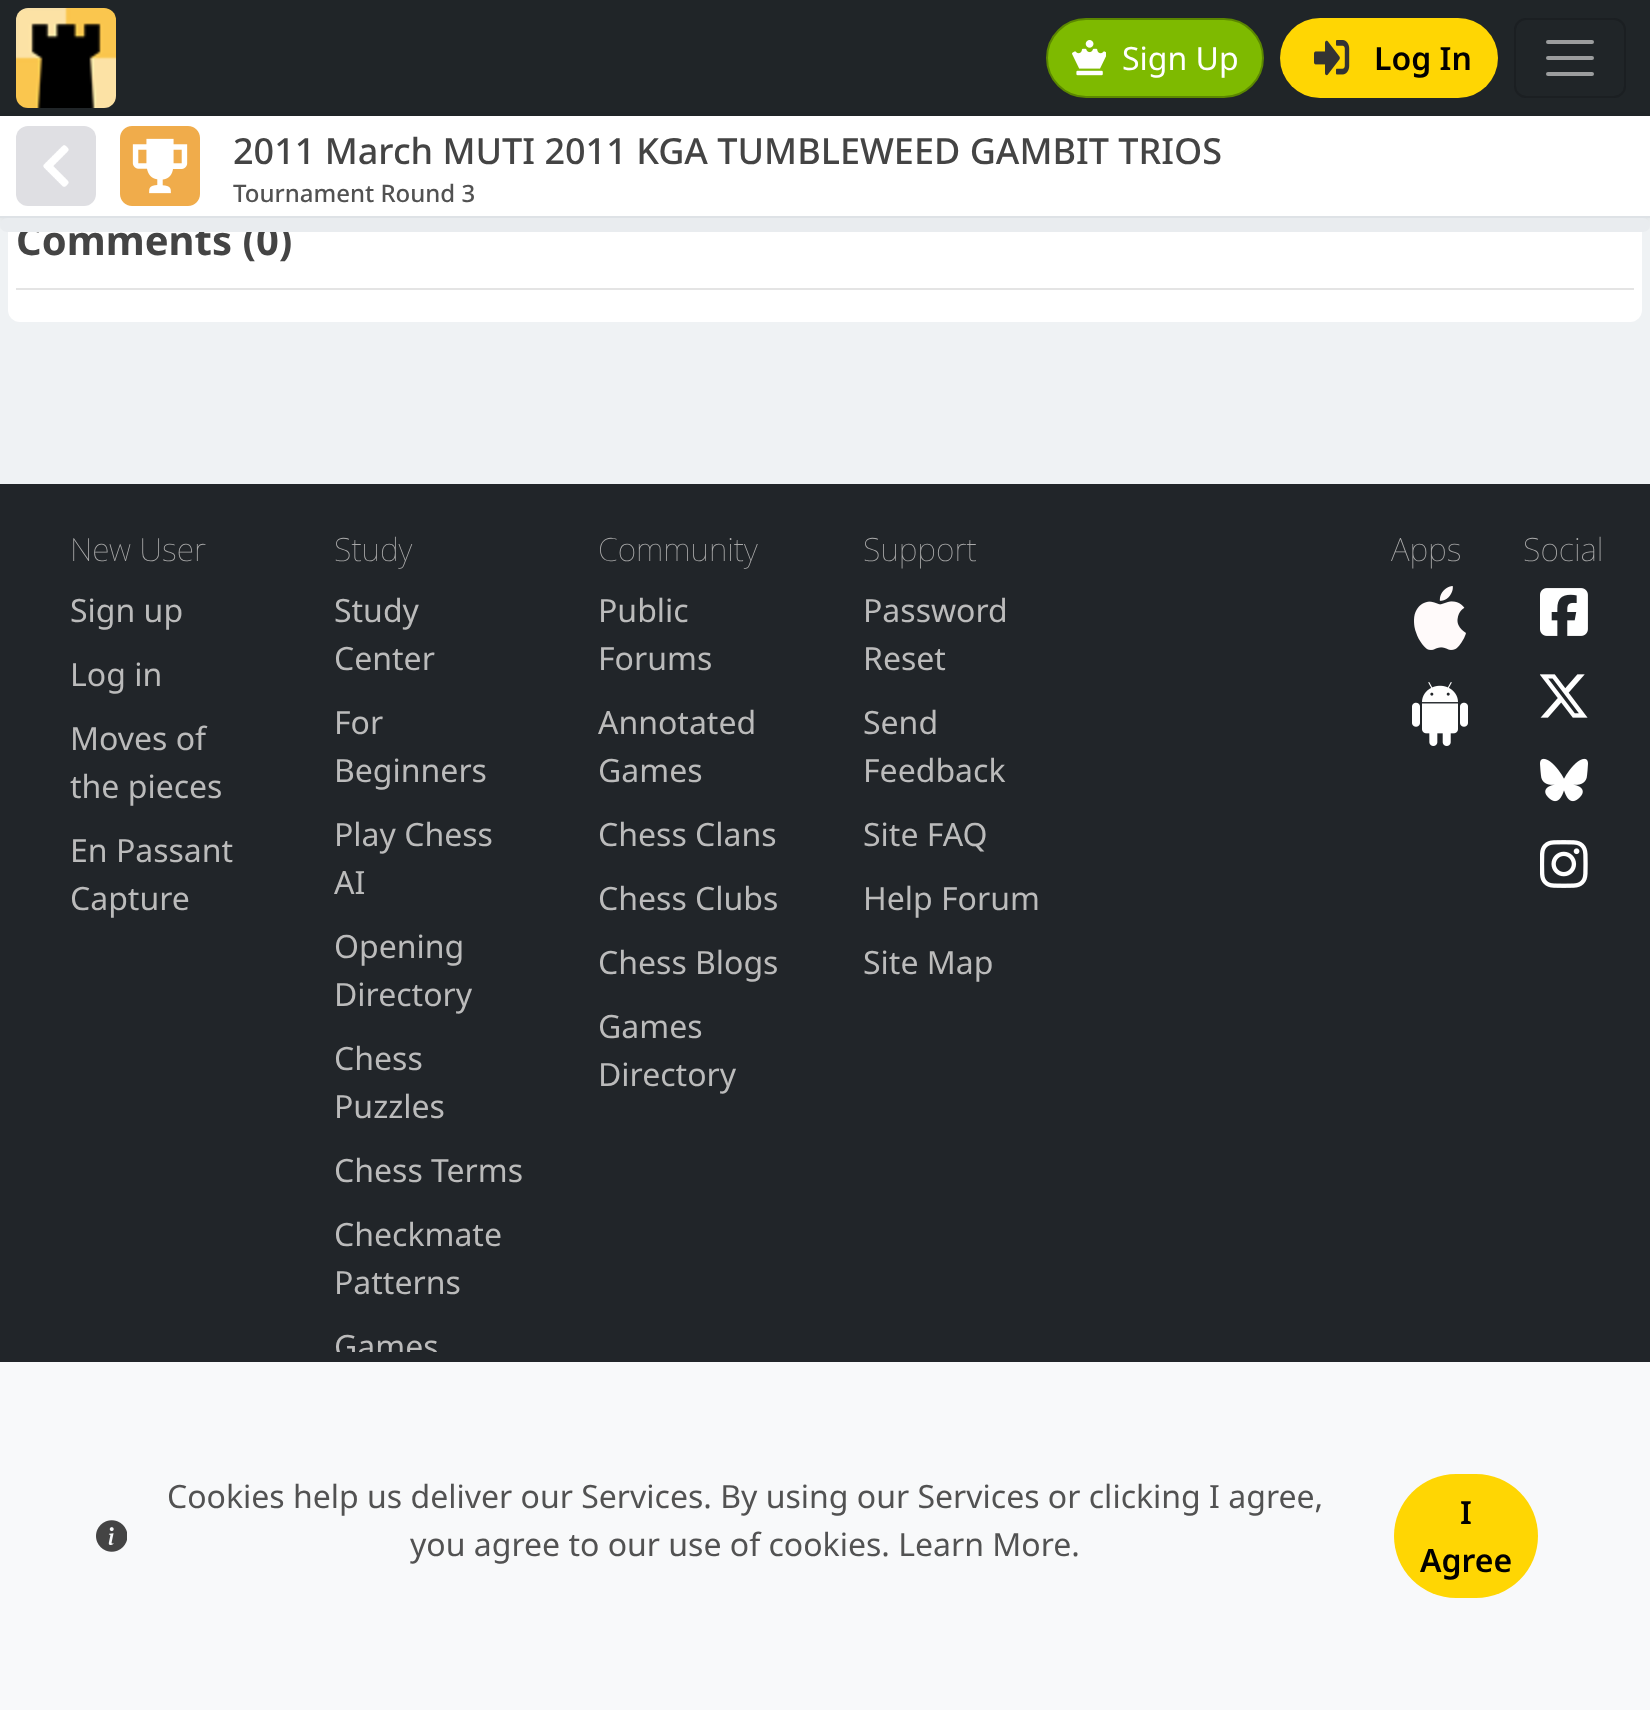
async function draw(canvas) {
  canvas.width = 1650
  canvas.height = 1710
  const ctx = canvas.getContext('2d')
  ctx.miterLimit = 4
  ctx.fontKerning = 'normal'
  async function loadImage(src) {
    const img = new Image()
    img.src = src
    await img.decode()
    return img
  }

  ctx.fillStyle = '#eff2f4'
  ctx.fillRect(0, 0, 1650, 1710)
  ctx.fillStyle = '#202528'
  ctx.fillRect(0, 0, 1650, 116)
  ctx.fillStyle = '#fff'
  ctx.beginPath()
  ctx.roundRect(8, 208, 1634, 114, 12)
  ctx.fill()
  ctx.fillStyle = '#00000012'
  ctx.filter = 'blur(4px)'
  ctx.beginPath()
  ctx.rect(0, 120, 1650, 102)
  ctx.fill()
  ctx.filter = 'none'
  ctx.drawImage(await loadImage('image0.png'), 16, 8, 100, 100)
  ctx.fillStyle = '#7eba00'
  ctx.beginPath()
  ctx.roundRect(1047, 19, 216, 78, 39)
  ctx.fill()
  ctx.strokeStyle = '#5b8700'
  ctx.lineWidth = 2
  ctx.stroke()
  ctx.drawImage(await loadImage('image1.png'), 1072, 40, 34, 36)
  ctx.font = '32px Noto Sans'
  ctx.fillStyle = '#fff'
  ctx.fillText('Sign Up', 1122, 70)
  ctx.fillStyle = '#ffd603'
  ctx.beginPath()
  ctx.roundRect(1280, 18, 218, 80, 40)
  ctx.fill()
  ctx.drawImage(await loadImage('image2.png'), 1314, 40, 36, 36)
  ctx.font = '600 32px Noto Sans'
  ctx.fillStyle = '#000'
  ctx.fillText('Log In', 1374, 70)
  ctx.beginPath()
  ctx.roundRect(1515, 19, 110, 78, 11)
  ctx.strokeStyle = '#1b1f22'
  ctx.stroke()
  ctx.beginPath()
  ctx.moveTo(1548, 42)
  ctx.lineTo(1592, 42)
  ctx.moveTo(1548, 58)
  ctx.lineTo(1592, 58)
  ctx.moveTo(1548, 74)
  ctx.lineTo(1592, 74)
  ctx.strokeStyle = '#9b9d9e'
  ctx.lineWidth = 4
  ctx.lineCap = 'round'
  ctx.stroke()
  ctx.fillStyle = '#fff'
  ctx.fillRect(0, 116, 1650, 100)
  ctx.fillStyle = '#dee2e6'
  ctx.fillRect(0, 216, 1650, 2)
  ctx.fillStyle = '#dfdfe3'
  ctx.beginPath()
  ctx.roundRect(16, 126, 80, 80, 12)
  ctx.fill()
  ctx.drawImage(await loadImage('image3.png'), 43, 145, 26, 42)
  ctx.drawImage(await loadImage('image4.png'), 120, 126, 80, 80)
  ctx.font = '500 36px Noto Sans'
  ctx.fillStyle = '#444'
  ctx.fillText('2011 March MUTI 2011 KGA TUMBLEWEED GAMBIT TRIOS', 233, 164)
  ctx.font = '500 24px Noto Sans'
  ctx.fillStyle = '#525252'
  ctx.fillText('Tournament Round 3', 233, 202)
  ctx.font = 'bold 40px Noto Sans'
  ctx.fillStyle = '#444'
  ctx.fillText('Comments (0)', 16, 255)
  ctx.fillStyle = '#e9ecef'
  ctx.beginPath()
  ctx.roundRect(0, 218, 1650, 14, 7)
  ctx.fill()
  ctx.fillStyle = '#e4e4e4'
  ctx.fillRect(16, 288, 1618, 2)
  ctx.fillStyle = '#212529'
  ctx.fillRect(0, 484, 1650, 868)
  ctx.font = '100 32px Noto Sans'
  ctx.fillStyle = '#aaa'
  ctx.fillText('New User', 70, 561)
  ctx.font = '32px Noto Sans'
  ctx.fillStyle = '#bbb'
  ctx.fillText('Sign up', 70, 622)
  ctx.fillText('Log in', 70, 686)
  ctx.fillText('Moves of', 70, 750)
  ctx.fillText('the pieces', 70, 798)
  ctx.fillText('En Passant', 70, 862)
  ctx.fillText('Capture', 70, 910)
  ctx.font = '100 32px Noto Sans'
  ctx.fillStyle = '#aaa'
  ctx.fillText('Study', 334, 561)
  ctx.font = '32px Noto Sans'
  ctx.fillStyle = '#bbb'
  ctx.fillText('Study', 334, 622)
  ctx.fillText('Center', 334, 670)
  ctx.fillText('For', 334, 734)
  ctx.fillText('Beginners', 334, 782)
  ctx.fillText('Play Chess', 334, 846)
  ctx.fillText('AI', 334, 894)
  ctx.fillText('Opening', 334, 958)
  ctx.fillText('Directory', 334, 1006)
  ctx.fillText('Chess', 334, 1070)
  ctx.fillText('Puzzles', 334, 1118)
  ctx.fillText('Chess Terms', 334, 1182)
  ctx.fillText('Checkmate', 334, 1246)
  ctx.fillText('Patterns', 334, 1294)
  ctx.fillText('Games', 334, 1358)
  ctx.font = '100 32px Noto Sans'
  ctx.fillStyle = '#aaa'
  ctx.fillText('Community', 598, 561)
  ctx.font = '32px Noto Sans'
  ctx.fillStyle = '#bbb'
  ctx.fillText('Public', 598, 622)
  ctx.fillText('Forums', 598, 670)
  ctx.fillText('Annotated', 598, 734)
  ctx.fillText('Games', 598, 782)
  ctx.fillText('Chess Clans', 598, 846)
  ctx.fillText('Chess Clubs', 598, 910)
  ctx.fillText('Chess Blogs', 598, 974)
  ctx.fillText('Games', 598, 1038)
  ctx.fillText('Directory', 598, 1086)
  ctx.font = '100 32px Noto Sans'
  ctx.fillStyle = '#aaa'
  ctx.fillText('Support', 863, 561)
  ctx.font = '32px Noto Sans'
  ctx.fillStyle = '#bbb'
  ctx.fillText('Password', 863, 622)
  ctx.fillText('Reset', 863, 670)
  ctx.fillText('Send', 863, 734)
  ctx.fillText('Feedback', 863, 782)
  ctx.fillText('Site FAQ', 863, 846)
  ctx.fillText('Help Forum', 863, 910)
  ctx.fillText('Site Map', 863, 974)
  ctx.font = '100 32px Noto Sans'
  ctx.fillStyle = '#aaa'
  ctx.fillText('Apps', 1391, 561)
  ctx.drawImage(await loadImage('image5.png'), 1414, 586, 52, 64)
  ctx.drawImage(await loadImage('image6.png'), 1412, 682, 56, 64)
  ctx.fillText('Social', 1523, 561)
  ctx.drawImage(await loadImage('image7.png'), 1540, 588, 48, 48)
  ctx.drawImage(await loadImage('image8.png'), 1540, 674, 48, 44)
  ctx.drawImage(await loadImage('image9.png'), 1540, 758, 48, 44)
  ctx.drawImage(await loadImage('image10.png'), 1540, 840, 48, 48)
  ctx.fillStyle = '#f8f9fa'
  ctx.fillRect(0, 1362, 1650, 348)
  ctx.fillStyle = '#212529'
  ctx.fillRect(0, 1352, 1650, 10)
  ctx.drawImage(await loadImage('image11.png'), 96, 1520, 31, 32)
  ctx.font = '32px Noto Sans'
  ctx.fillStyle = '#525252'
  ctx.fillText('Cookies help us deliver our Services. By using our Services or clicking I agree,', 167, 1508)
  ctx.fillText('you agree to our use of cookies. Learn More.', 410, 1556)
  ctx.fillStyle = '#ffd603'
  ctx.beginPath()
  ctx.roundRect(1394, 1474, 144, 124, 62)
  ctx.fill()
  ctx.font = '600 32px Noto Sans'
  ctx.fillStyle = '#000'
  ctx.fillText('I', 1460, 1524)
  ctx.fillText('Agree', 1420, 1572)
}

draw(document.querySelector('canvas'))
